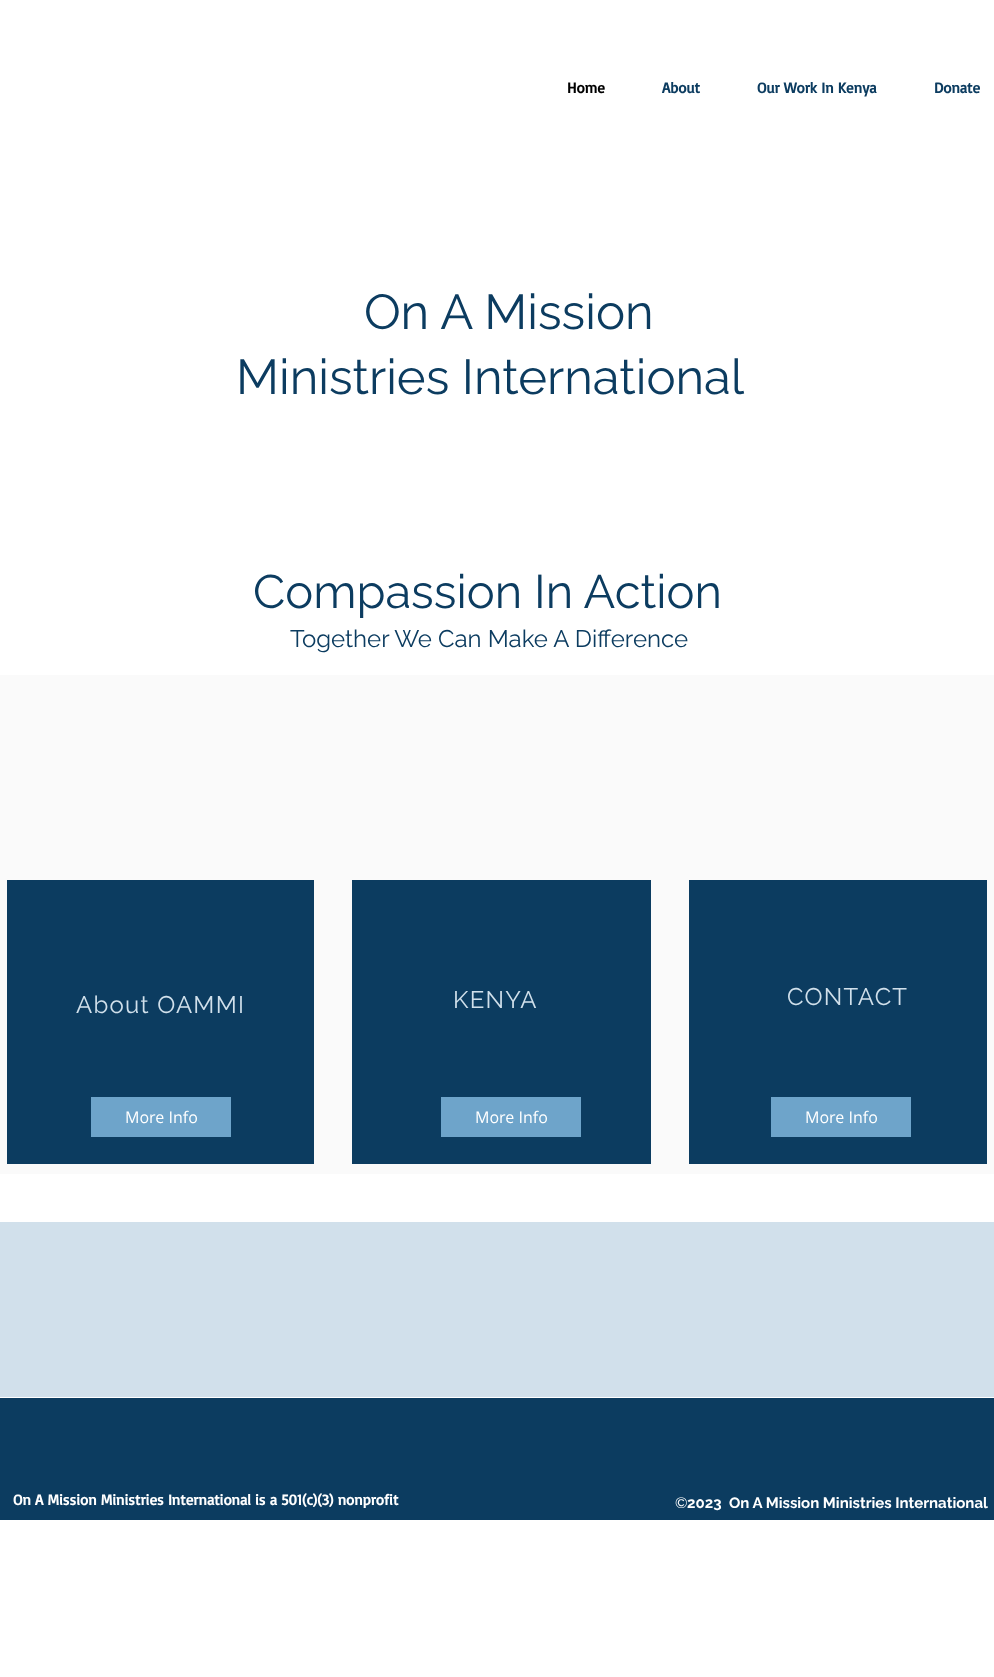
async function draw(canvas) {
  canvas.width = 994
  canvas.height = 1677
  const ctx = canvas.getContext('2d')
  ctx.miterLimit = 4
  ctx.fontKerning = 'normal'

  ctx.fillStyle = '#fff'
  ctx.fillRect(0, 0, 994, 1677)
  ctx.font = 'bold 15px Basic'
  ctx.fillStyle = '#000'
  ctx.fillText('Home', 567, 93)
  ctx.fillStyle = '#0c3c60'
  ctx.fillText('About', 662, 93)
  ctx.fillText('Our Work In Kenya', 757, 93)
  ctx.fillText('Donate', 934, 93)
  ctx.font = '49px Raleway'
  ctx.fillText('On A Mission', 364, 329)
  ctx.fillText('Ministries International', 236, 394)
  ctx.font = '47px Raleway'
  ctx.fillText('Compassion In Action', 253, 608)
  ctx.font = '24px Raleway'
  ctx.fillText('Together We Can Make A Difference', 290, 647)
  ctx.fillStyle = '#fafafa'
  ctx.fillRect(0, 675, 994, 499)
  ctx.fillStyle = '#0c3c60'
  ctx.fillRect(7, 880, 307, 284)
  ctx.letterSpacing = '1.25px'
  ctx.fillStyle = '#d1e0eb'
  ctx.fillText('About OAMMI', 76, 1013)
  ctx.fillStyle = '#6ea4ca'
  ctx.fillRect(91, 1097, 140, 40)
  ctx.letterSpacing = '0px'
  ctx.font = '16px Open Sans'
  ctx.fillStyle = '#fff'
  ctx.fillText('More Info', 125, 1123)
  ctx.fillStyle = '#0c3c60'
  ctx.fillRect(352, 880, 299, 284)
  ctx.letterSpacing = '1.25px'
  ctx.font = '24px Raleway'
  ctx.fillStyle = '#d1e0eb'
  ctx.fillText('KENYA', 453, 1008)
  ctx.fillStyle = '#6ea4ca'
  ctx.fillRect(441, 1097, 140, 40)
  ctx.letterSpacing = '0px'
  ctx.font = '16px Open Sans'
  ctx.fillStyle = '#fff'
  ctx.fillText('More Info', 475, 1123)
  ctx.fillStyle = '#0c3c60'
  ctx.fillRect(689, 880, 298, 284)
  ctx.letterSpacing = '1.25px'
  ctx.font = '24px Raleway'
  ctx.fillStyle = '#d1e0eb'
  ctx.fillText('CONTACT', 787, 1005)
  ctx.fillStyle = '#6ea4ca'
  ctx.fillRect(771, 1097, 140, 40)
  ctx.letterSpacing = '0px'
  ctx.font = '16px Open Sans'
  ctx.fillStyle = '#fff'
  ctx.fillText('More Info', 805, 1123)
  ctx.fillStyle = '#d1e0eb'
  ctx.fillRect(0, 1222, 994, 175)
  ctx.fillStyle = '#0c3c60'
  ctx.fillRect(0, 1398, 994, 122)
  ctx.font = 'bold 15px Basic'
  ctx.fillStyle = '#fff'
  ctx.fillText('On A Mission Ministries International is a 501(c)(3) nonprofit', 13, 1505)
  ctx.font = '15px Raleway'
  ctx.fillText('©', 675, 1508)
  ctx.font = 'bold 15px Raleway'
  ctx.fillText('2023', 687, 1508)
  ctx.fillText('On A Mission Ministries International', 729, 1508)
}

draw(document.querySelector('canvas'))
